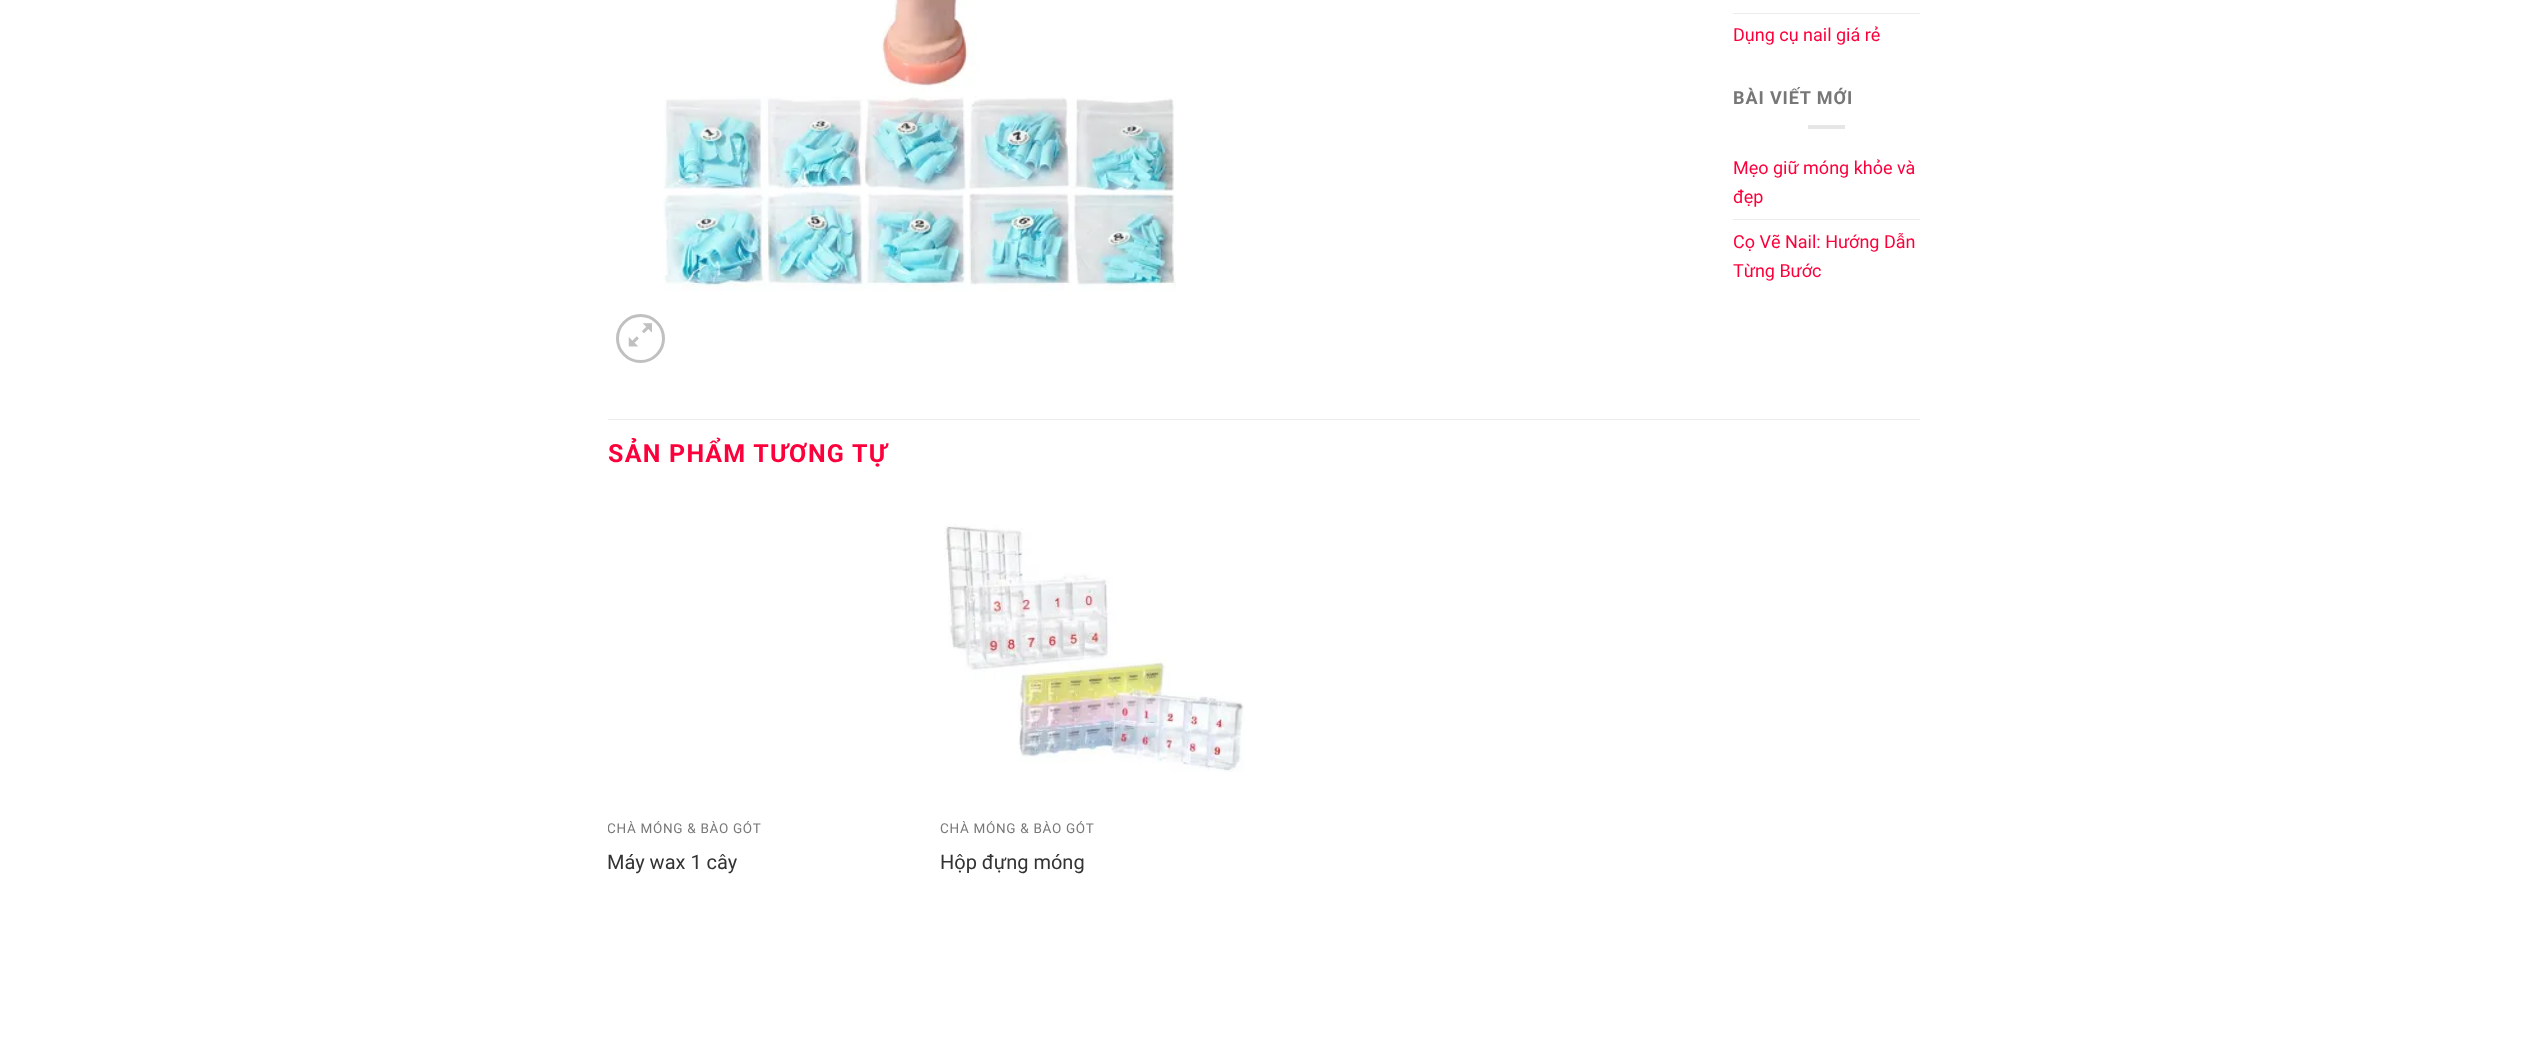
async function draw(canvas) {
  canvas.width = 2527
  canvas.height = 1041
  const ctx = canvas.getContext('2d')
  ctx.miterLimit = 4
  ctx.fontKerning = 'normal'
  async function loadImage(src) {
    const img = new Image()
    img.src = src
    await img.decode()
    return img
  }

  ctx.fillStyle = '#fff'
  ctx.fillRect(0, 0, 2527, 1041)
  ctx.drawImage(await loadImage('image0.png'), 663, 0, 513, 291)
  ctx.beginPath()
  ctx.arc(640.5, 338.5, 23, 0, 2 * Math.PI)
  ctx.strokeStyle = '#c0c0c0'
  ctx.lineWidth = 3
  ctx.stroke()
  ctx.drawImage(await loadImage('image1.png'), 628, 323, 24, 24)
  ctx.fillStyle = '#ececec'
  ctx.fillRect(1733, 13, 187, 1)
  ctx.font = '18px Roboto'
  ctx.fillStyle = '#fc003b'
  ctx.fillText('Dụng cụ nail giá rẻ', 1733, 41)
  ctx.letterSpacing = '0.9px'
  ctx.font = 'bold 18px Roboto'
  ctx.fillStyle = '#777'
  ctx.fillText('BÀI VIẾT MỚI', 1733, 104)
  ctx.fillStyle = '#e6e6e6'
  ctx.fillRect(1808, 125, 37, 4)
  ctx.letterSpacing = '0px'
  ctx.font = '18px Roboto'
  ctx.fillStyle = '#fc003b'
  ctx.fillText('Mẹo giữ móng khỏe và', 1733, 174)
  ctx.fillText('đẹp', 1733, 203)
  ctx.fillStyle = '#ececec'
  ctx.fillRect(1733, 219, 187, 1)
  ctx.fillStyle = '#fc003b'
  ctx.fillText('Cọ Vẽ Nail: Hướng Dẫn', 1733, 248)
  ctx.fillText('Từng Bước', 1733, 277)
  ctx.fillStyle = '#ececec'
  ctx.fillRect(608, 419, 1312, 1)
  ctx.letterSpacing = '1.25px'
  ctx.font = 'bold 25px Roboto'
  ctx.fillStyle = '#fc003b'
  ctx.fillText('SẢN PHẨM TƯƠNG TỰ', 608, 462)
  ctx.save()
  ctx.beginPath()
  ctx.rect(608, 821, 307, 17)
  ctx.clip()
  ctx.letterSpacing = '0.7px'
  ctx.font = '13.5px Roboto'
  ctx.fillStyle = '#777'
  ctx.fillText('CHÀ MÓNG & BÀO GÓT', 607, 833)
  ctx.restore()
  ctx.letterSpacing = '0px'
  ctx.font = '20px Roboto'
  ctx.fillStyle = '#333'
  ctx.fillText('Máy wax 1 cây', 607, 869)
  ctx.drawImage(await loadImage('image2.png'), 944, 524, 301, 248)
  ctx.save()
  ctx.beginPath()
  ctx.rect(940, 821, 309, 17)
  ctx.clip()
  ctx.letterSpacing = '0.7px'
  ctx.font = '13.5px Roboto'
  ctx.fillStyle = '#777'
  ctx.fillText('CHÀ MÓNG & BÀO GÓT', 940, 833)
  ctx.restore()
  ctx.fillText('Hộp đựng móng', 940, 869)
}

draw(document.querySelector('canvas'))
